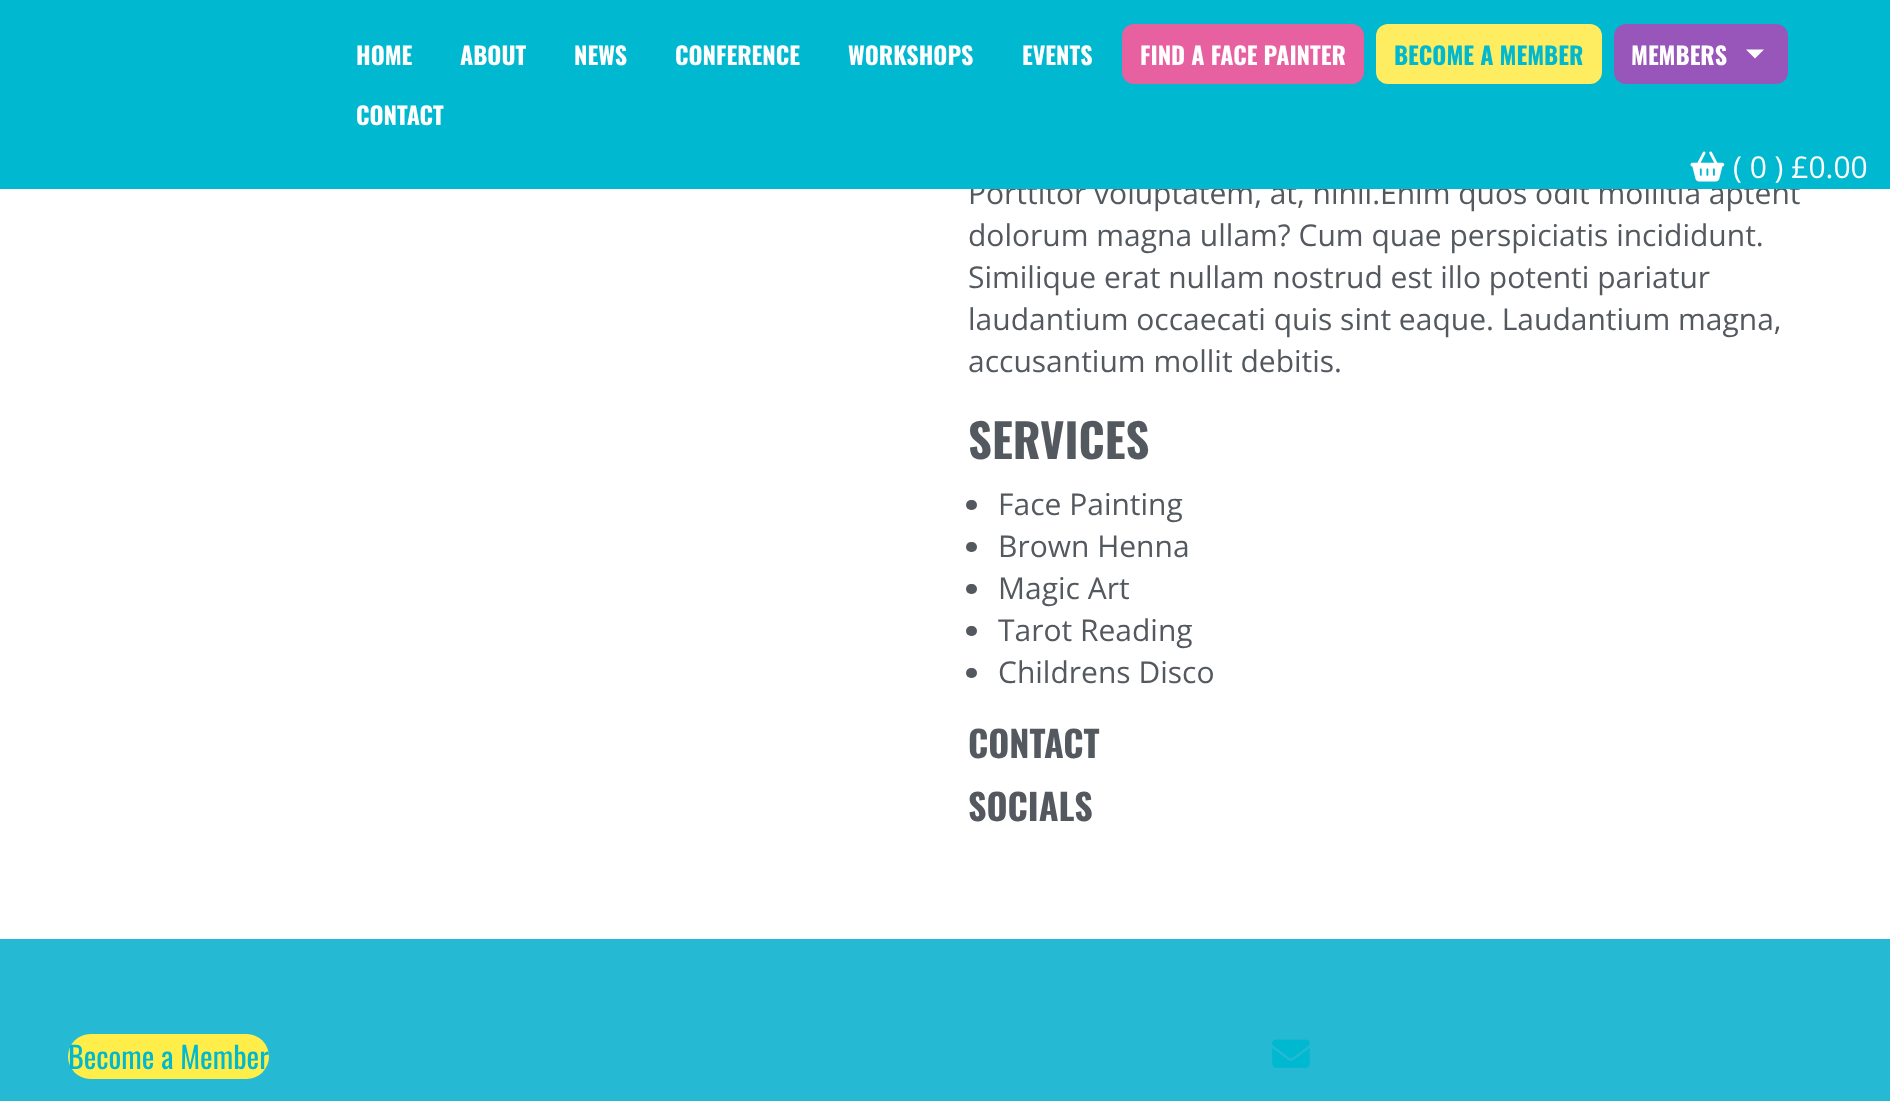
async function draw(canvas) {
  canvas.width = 1890
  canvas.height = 1101
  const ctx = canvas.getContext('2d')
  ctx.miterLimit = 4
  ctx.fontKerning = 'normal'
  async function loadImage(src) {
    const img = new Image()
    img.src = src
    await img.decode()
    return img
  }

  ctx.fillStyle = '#fff'
  ctx.fillRect(0, 0, 1890, 1101)
  ctx.font = '30px Open Sans'
  ctx.fillStyle = '#54595f'
  ctx.fillText('Porttitor voluptatem, at, nihil.Enim quos odit mollitia aptent', 968, 204)
  ctx.fillStyle = '#00b8cf'
  ctx.fillRect(0, 0, 1890, 189)
  ctx.font = 'bold 24px Oswald'
  ctx.fillStyle = '#fff'
  ctx.fillText('HOME', 356, 65)
  ctx.fillText('ABOUT', 460, 65)
  ctx.fillText('NEWS', 574, 65)
  ctx.fillText('CONFERENCE', 675, 65)
  ctx.fillText('WORKSHOPS', 848, 65)
  ctx.fillText('EVENTS', 1022, 65)
  ctx.fillStyle = '#e7609f'
  ctx.beginPath()
  ctx.roundRect(1122, 24, 242, 60, 12)
  ctx.fill()
  ctx.fillStyle = '#fff'
  ctx.fillText('FIND A FACE PAINTER', 1140, 65)
  ctx.fillStyle = '#ffed61'
  ctx.beginPath()
  ctx.roundRect(1376, 24, 226, 60, 12)
  ctx.fill()
  ctx.fillStyle = '#00b8cf'
  ctx.fillText('BECOME A MEMBER', 1394, 65)
  ctx.fillStyle = '#9856ba'
  ctx.beginPath()
  ctx.roundRect(1614, 24, 174, 60, 12)
  ctx.fill()
  ctx.fillStyle = '#fff'
  ctx.fillText('MEMBERS', 1631, 65)
  ctx.beginPath()
  ctx.moveTo(1746, 49.5)
  ctx.lineTo(1764, 49.5)
  ctx.lineTo(1755, 58.5)
  ctx.closePath()
  ctx.fill()
  ctx.fillText('CONTACT', 356, 125)
  ctx.drawImage(await loadImage('image0.png'), 1690, 151, 35, 31)
  ctx.font = '30px Open Sans'
  ctx.fillText('( 0 ) £0.00', 1733, 178)
  ctx.fillStyle = '#54595f'
  ctx.fillText('dolorum magna ullam? Cum quae perspiciatis incididunt.', 968, 246)
  ctx.fillText('Similique erat nullam nostrud est illo potenti pariatur', 968, 288)
  ctx.fillText('laudantium occaecati quis sint eaque. Laudantium magna,', 968, 330)
  ctx.fillText('accusantium mollit debitis.', 968, 372)
  ctx.font = 'bold 46.5px Oswald'
  ctx.fillText('SERVICES', 968, 459)
  ctx.beginPath()
  ctx.roundRect(966, 500, 11, 10, 5)
  ctx.fill()
  ctx.font = '30px Open Sans'
  ctx.fillText('Face Painting', 998, 515)
  ctx.beginPath()
  ctx.roundRect(966, 542, 11, 10, 5)
  ctx.fill()
  ctx.fillText('Brown Henna', 998, 557)
  ctx.beginPath()
  ctx.roundRect(966, 584, 11, 10, 5)
  ctx.fill()
  ctx.fillText('Magic Art', 998, 599)
  ctx.beginPath()
  ctx.roundRect(966, 626, 11, 10, 5)
  ctx.fill()
  ctx.fillText('Tarot Reading', 998, 641)
  ctx.beginPath()
  ctx.roundRect(966, 668, 11, 10, 5)
  ctx.fill()
  ctx.fillText('Childrens Disco', 998, 683)
  ctx.font = 'bold 36px Oswald'
  ctx.fillText('CONTACT', 968, 758)
  ctx.fillText('SOCIALS', 968, 821)
  ctx.fillStyle = '#25b9d3'
  ctx.fillRect(0, 939, 1890, 162)
  ctx.fillStyle = '#ffee49'
  ctx.beginPath()
  ctx.roundRect(68, 1034, 201, 45, 22.5)
  ctx.fill()
  ctx.font = '30px Oswald'
  ctx.fillStyle = '#00b8cf'
  ctx.fillText('Become a Member', 68, 1069)
  ctx.drawImage(await loadImage('image1.png'), 1272, 1039, 38, 29)
}

draw(document.querySelector('canvas'))
